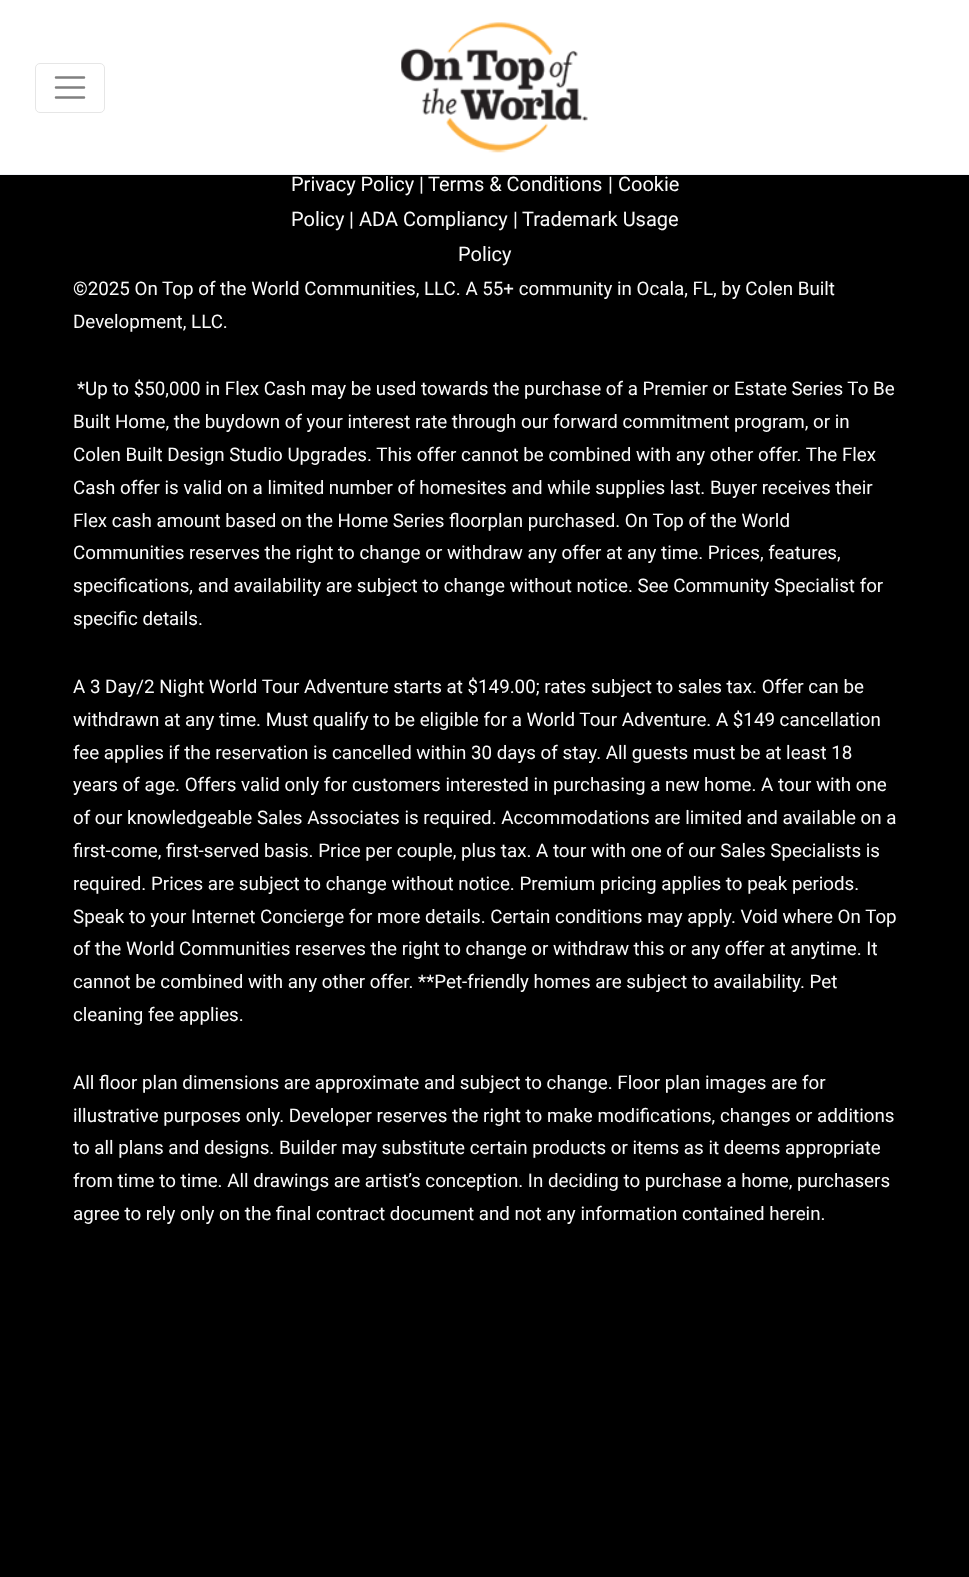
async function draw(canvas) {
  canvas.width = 969
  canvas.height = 1577
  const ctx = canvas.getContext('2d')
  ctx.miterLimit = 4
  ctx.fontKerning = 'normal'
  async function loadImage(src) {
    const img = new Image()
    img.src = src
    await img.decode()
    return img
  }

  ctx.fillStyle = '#000'
  ctx.fillRect(0, 0, 969, 1577)
  ctx.fillStyle = '#fff'
  ctx.fillRect(0, 0, 969, 174)
  ctx.fillStyle = '#f0f2f7'
  ctx.fillRect(0, 174, 969, 1)
  ctx.beginPath()
  ctx.roundRect(35.5, 63.5, 69, 49, 4.5)
  ctx.strokeStyle = '#e6e6e6'
  ctx.stroke()
  ctx.beginPath()
  ctx.moveTo(56, 77.5)
  ctx.lineTo(84, 77.5)
  ctx.moveTo(56, 87.5)
  ctx.lineTo(84, 87.5)
  ctx.moveTo(56, 97.5)
  ctx.lineTo(84, 97.5)
  ctx.strokeStyle = '#808080'
  ctx.lineWidth = 2.5
  ctx.lineCap = 'round'
  ctx.stroke()
  ctx.drawImage(await loadImage('image0.png'), 401, 22, 187, 131)
  ctx.font = '20px Roboto'
  ctx.fillStyle = '#fafafa'
  ctx.fillText('Privacy Policy', 291, 191)
  ctx.fillText('|', 419, 191)
  ctx.fillText('Terms & Conditions', 428, 191)
  ctx.fillText('|', 608, 191)
  ctx.fillText('Cookie', 618, 191)
  ctx.fillText('Policy', 291, 226)
  ctx.fillText('|', 349, 226)
  ctx.fillText('ADA Compliancy', 359, 226)
  ctx.fillText('|', 513, 226)
  ctx.fillText('Trademark Usage', 522, 226)
  ctx.fillText('Policy', 458, 261)
  ctx.font = '18.75px Roboto'
  ctx.fillText('©2025 On Top of the World Communities, LLC. A 55+ community in Ocala, FL, by Colen Built', 73, 295)
  ctx.fillText('Development, LLC.', 73, 328)
  ctx.fillText('*Up to $50,000 in Flex Cash may be used towards the purchase of a Premier or Estate Series To Be', 77, 395)
  ctx.fillText('Built Home, the buydown of your interest rate through our forward commitment program, or in', 73, 428)
  ctx.fillText('Colen Built Design Studio Upgrades. This offer cannot be combined with any other offer. The Flex', 73, 461)
  ctx.fillText('Cash offer is valid on a limited number of homesites and while supplies last. Buyer receives their', 73, 494)
  ctx.fillText('Flex cash amount based on the Home Series floorplan purchased. On Top of the World', 73, 527)
  ctx.fillText('Communities reserves the right to change or withdraw any offer at any time. Prices, features,', 73, 559)
  ctx.fillText('specifications, and availability are subject to change without notice. See Community Specialist for', 73, 592)
  ctx.fillText('specific details.', 73, 625)
  ctx.fillText('A 3 Day/2 Night World Tour Adventure starts at $149.00; rates subject to sales tax. Offer can be', 73, 693)
  ctx.fillText('withdrawn at any time. Must qualify to be eligible for a World Tour Adventure. A $149 cancellation', 73, 726)
  ctx.fillText('fee applies if the reservation is cancelled within 30 days of stay. All guests must be at least 18', 73, 759)
  ctx.fillText('years of age. Offers valid only for customers interested in purchasing a new home. A tour with one', 73, 791)
  ctx.fillText('of our knowledgeable Sales Associates is required. Accommodations are limited and available on a', 73, 824)
  ctx.fillText('first-come, first-served basis. Price per couple, plus tax. A tour with one of our Sales Specialists is', 73, 857)
  ctx.fillText('required. Prices are subject to change without notice. Premium pricing applies to peak periods.', 73, 890)
  ctx.fillText('Speak to your Internet Concierge for more details. Certain conditions may apply. Void where On Top', 73, 923)
  ctx.fillText('of the World Communities reserves the right to change or withdraw this or any offer at anytime. It', 73, 955)
  ctx.fillText('cannot be combined with any other offer. **Pet-friendly homes are subject to availability. Pet', 73, 988)
  ctx.fillText('cleaning fee applies.', 73, 1021)
  ctx.fillText('All floor plan dimensions are approximate and subject to change. Floor plan images are for', 73, 1089)
  ctx.fillText('illustrative purposes only. Developer reserves the right to make modifications, changes or additions', 73, 1122)
  ctx.fillText('to all plans and designs. Builder may substitute certain products or items as it deems appropriate', 73, 1154)
  ctx.fillText('from time to time. All drawings are artist’s conception. In deciding to purchase a home, purchasers', 73, 1187)
  ctx.fillText('agree to rely only on the final contract document and not any information contained herein.', 73, 1220)
}

draw(document.querySelector('canvas'))
